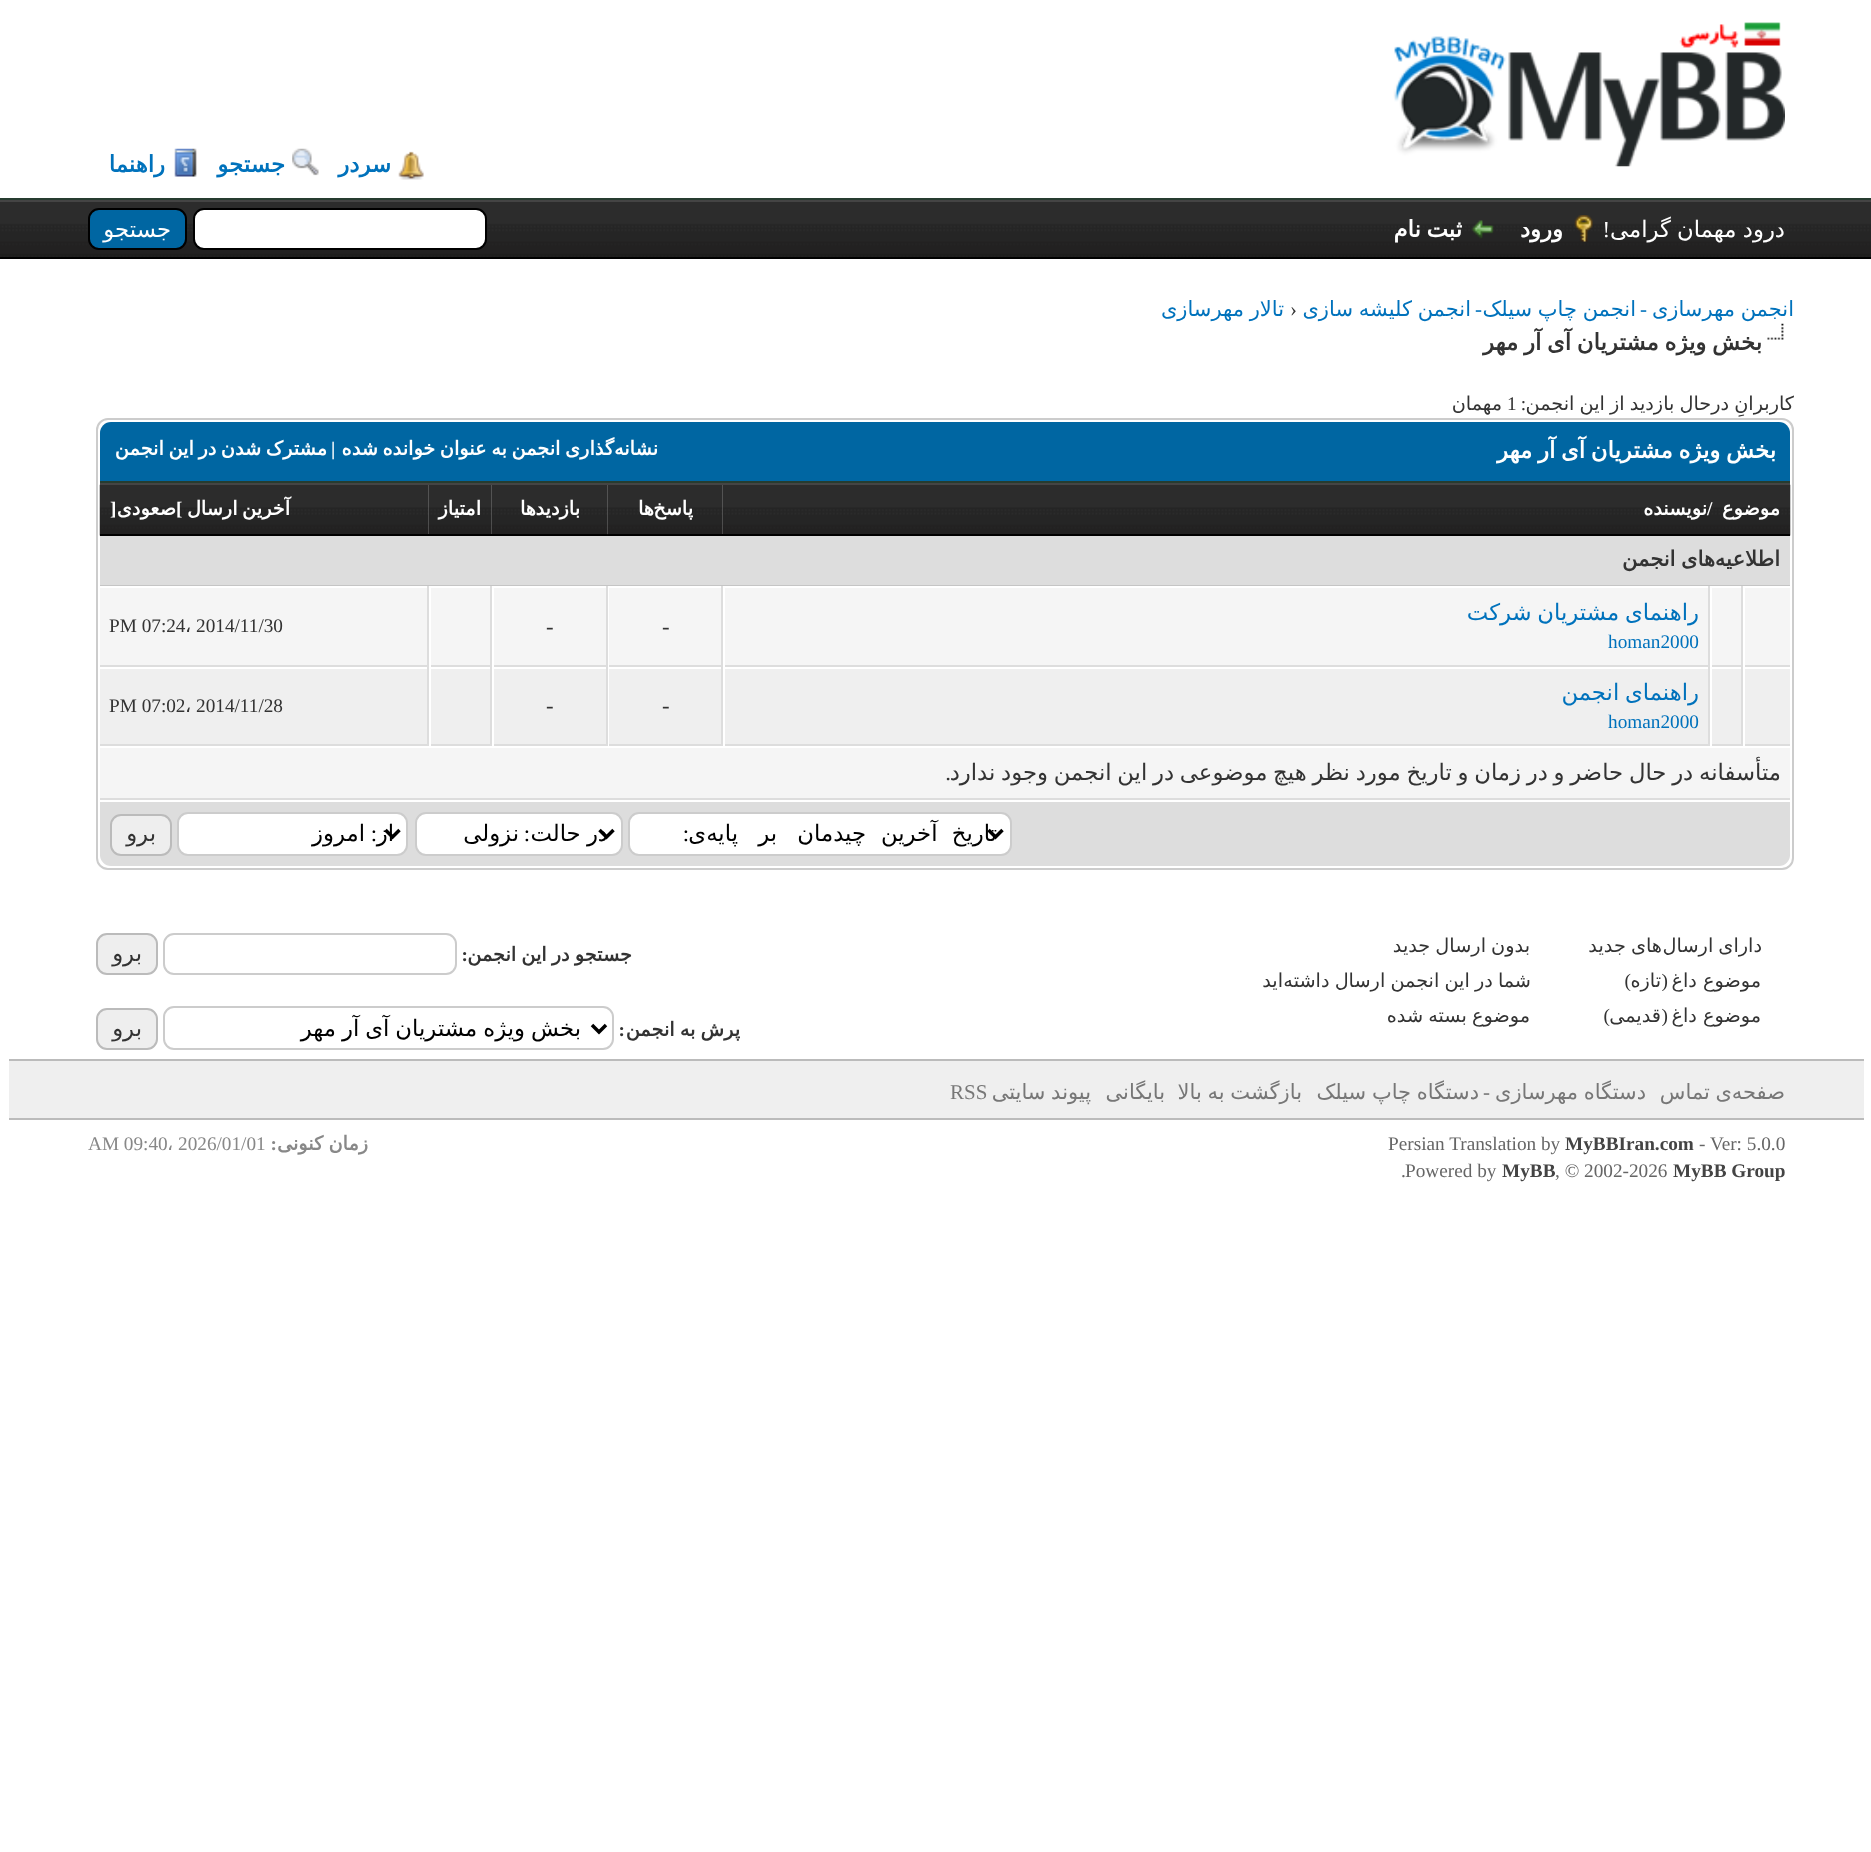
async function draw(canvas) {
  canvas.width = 1871
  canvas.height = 1852
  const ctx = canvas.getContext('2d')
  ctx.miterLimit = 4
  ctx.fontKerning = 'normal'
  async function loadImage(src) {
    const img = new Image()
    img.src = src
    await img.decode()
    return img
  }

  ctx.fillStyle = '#fff'
  ctx.fillRect(0, 0, 1871, 1852)
  ctx.fillStyle = '#263c30'
  ctx.fillRect(0, 198, 1871, 2)
  ctx.drawImage(await loadImage('image0.png'), 1393, 22, 392, 145)
  ctx.drawImage(await loadImage('image1.png'), 398, 151, 26, 29)
  ctx.direction = 'rtl'
  ctx.font = 'bold 22.75px DejaVu Sans'
  ctx.fillStyle = '#0072bc'
  ctx.fillText('سردر', 391, 172)
  ctx.drawImage(await loadImage('image2.png'), 292, 148, 27, 28)
  ctx.fillText('جستجو', 285, 172)
  ctx.drawImage(await loadImage('image3.png'), 174, 148, 23, 29)
  ctx.fillText('راهنما', 165, 172)
  ctx.drawImage(await loadImage('image4.png'), 0, 202, 1871, 55)
  ctx.fillStyle = '#444'
  ctx.fillRect(0, 200, 1871, 2)
  ctx.fillStyle = '#000'
  ctx.fillRect(0, 257, 1871, 2)
  ctx.wordSpacing = '-1px'
  ctx.font = '22.75px DejaVu Sans'
  ctx.fillStyle = '#fff'
  ctx.fillText('درود مهمان گرامی', 1785, 237)
  ctx.wordSpacing = '0px'
  ctx.font = '22.75px Liberation Serif'
  ctx.fillText('!', 1610, 237)
  ctx.drawImage(await loadImage('image5.png'), 1574, 215, 19, 27)
  ctx.font = 'bold 22.75px DejaVu Sans'
  ctx.fillText('ورود', 1563, 237)
  ctx.drawImage(await loadImage('image6.png'), 1471, 220, 23, 19)
  ctx.wordSpacing = '-1.5px'
  ctx.fillText('ثبت نام', 1462, 237)
  ctx.beginPath()
  ctx.roundRect(194, 209, 292, 40, 10)
  ctx.fill()
  ctx.strokeStyle = '#000'
  ctx.lineWidth = 2
  ctx.stroke()
  ctx.fillStyle = '#0066a2'
  ctx.beginPath()
  ctx.roundRect(89, 209, 97, 40, 10)
  ctx.fill()
  ctx.stroke()
  ctx.wordSpacing = '0px'
  ctx.font = '22.75px DejaVu Sans'
  ctx.fillStyle = '#fff'
  ctx.fillText('جستجو', 171, 237)
  ctx.wordSpacing = '-1px'
  ctx.font = '21px DejaVu Sans'
  ctx.fillStyle = '#0072bc'
  ctx.fillText('انجمن مهرسازی', 1794, 316)
  ctx.wordSpacing = '0px'
  ctx.font = '21px Liberation Serif'
  ctx.fillText('-', 1647, 316)
  ctx.wordSpacing = '-1px'
  ctx.font = '21px DejaVu Sans'
  ctx.fillText('انجمن چاپ سیلک', 1636, 316)
  ctx.wordSpacing = '0px'
  ctx.font = '21px Liberation Serif'
  ctx.fillText('-', 1482, 316)
  ctx.wordSpacing = '-1px'
  ctx.font = '21px DejaVu Sans'
  ctx.fillText('انجمن کلیشه سازی', 1471, 316)
  ctx.wordSpacing = '0px'
  ctx.direction = 'ltr'
  ctx.font = '21px Liberation Serif'
  ctx.fillStyle = '#333'
  ctx.fillText('›', 1290, 316)
  ctx.wordSpacing = '-1px'
  ctx.direction = 'rtl'
  ctx.font = '21px DejaVu Sans'
  ctx.fillStyle = '#0072bc'
  ctx.fillText('تالار مهرسازی', 1284, 316)
  ctx.drawImage(await loadImage('image7.png'), 1767, 323, 17, 17)
  ctx.wordSpacing = '-1.5px'
  ctx.font = 'bold 22.75px DejaVu Sans'
  ctx.fillStyle = '#333'
  ctx.fillText('بخش ویژه مشتریان آی آر مهر', 1762, 350)
  ctx.wordSpacing = '-1px'
  ctx.font = '19.25px DejaVu Sans'
  ctx.fillText('کاربرانِ درحال بازدید از این انجمن', 1794, 410)
  ctx.wordSpacing = '0px'
  ctx.font = '19.25px Liberation Serif'
  ctx.fillText(':', 1526, 410)
  ctx.direction = 'ltr'
  ctx.fillText('1', 1507, 410)
  ctx.direction = 'rtl'
  ctx.font = '19.25px DejaVu Sans'
  ctx.fillText('مهمان', 1502, 410)
  ctx.beginPath()
  ctx.roundRect(97, 419, 1696, 450, 11)
  ctx.strokeStyle = '#ccc'
  ctx.stroke()
  ctx.fillStyle = '#0066a2'
  ctx.beginPath()
  ctx.roundRect(100, 422, 1690, 61, [11, 11, 0, 0])
  ctx.fill()
  ctx.fillStyle = '#263c30'
  ctx.fillRect(100, 481, 1690, 2)
  ctx.wordSpacing = '-1.5px'
  ctx.font = 'bold 22.75px DejaVu Sans'
  ctx.fillStyle = '#fff'
  ctx.fillText('بخش ویژه مشتریان آی آر مهر', 1776, 458)
  ctx.font = 'bold 19.25px DejaVu Sans'
  ctx.fillText('گذاری انجمن به عنوان خوانده شده', 614, 455)
  ctx.wordSpacing = '0px'
  ctx.fillText('نشانه', 658, 455)
  ctx.direction = 'ltr'
  ctx.font = 'bold 19.25px Liberation Serif'
  ctx.fillText('|', 331, 455)
  ctx.wordSpacing = '-1.5px'
  ctx.direction = 'rtl'
  ctx.font = 'bold 19.25px DejaVu Sans'
  ctx.fillText('مشترک شدن در این انجمن', 327, 455)
  ctx.drawImage(await loadImage('image8.png'), 722, 484, 1069, 52)
  ctx.fillStyle = '#444'
  ctx.fillRect(607, 483, 1183, 2)
  ctx.fillStyle = '#000'
  ctx.fillRect(607, 534, 1183, 2)
  ctx.wordSpacing = '0px'
  ctx.fillStyle = '#fff'
  ctx.fillText('موضوع', 1780, 515)
  ctx.direction = 'ltr'
  ctx.font = 'bold 19.25px Liberation Serif'
  ctx.fillText('/', 1707, 515)
  ctx.direction = 'rtl'
  ctx.font = 'bold 19.25px DejaVu Sans'
  ctx.fillText('نویسنده', 1707, 515)
  ctx.drawImage(await loadImage('image9.png'), 607, 485, 116, 49)
  ctx.fillText('پاسخ', 693, 515)
  ctx.fillText('ها', 654, 515)
  ctx.drawImage(await loadImage('image10.png'), 491, 484, 117, 52)
  ctx.fillStyle = '#444'
  ctx.fillRect(429, 483, 178, 2)
  ctx.fillStyle = '#000'
  ctx.fillRect(429, 534, 178, 2)
  ctx.fillStyle = '#fff'
  ctx.fillText('بازدید', 580, 515)
  ctx.fillText('ها', 536, 515)
  ctx.drawImage(await loadImage('image11.png'), 428, 485, 64, 49)
  ctx.fillText('امتیاز', 481, 515)
  ctx.drawImage(await loadImage('image12.png'), 99, 484, 330, 52)
  ctx.fillStyle = '#444'
  ctx.fillRect(100, 483, 329, 2)
  ctx.fillStyle = '#000'
  ctx.fillRect(100, 534, 329, 2)
  ctx.wordSpacing = '-1.5px'
  ctx.fillStyle = '#fff'
  ctx.fillText('آخرین ارسال', 290, 515)
  ctx.wordSpacing = '0px'
  ctx.direction = 'ltr'
  ctx.font = 'bold 19.25px Liberation Serif'
  ctx.fillText('[', 176, 515)
  ctx.direction = 'rtl'
  ctx.font = 'bold 19.25px DejaVu Sans'
  ctx.fillText('صعودی', 176, 515)
  ctx.direction = 'ltr'
  ctx.font = 'bold 19.25px Liberation Serif'
  ctx.fillText(']', 110, 515)
  ctx.fillStyle = '#ddd'
  ctx.fillRect(100, 536, 1690, 49)
  ctx.fillStyle = '#c5c5c5'
  ctx.fillRect(100, 585, 1690, 1)
  ctx.direction = 'rtl'
  ctx.font = 'bold 21px DejaVu Sans'
  ctx.fillStyle = '#333'
  ctx.fillText('اطلاعیه', 1780, 566)
  ctx.wordSpacing = '-1px'
  ctx.fillText('های انجمن', 1715, 566)
  ctx.fillStyle = '#f5f5f5'
  ctx.fillRect(1745, 588, 45, 77)
  ctx.fillStyle = '#ddd'
  ctx.fillRect(1743, 665, 47, 2)
  ctx.fillStyle = '#fff'
  ctx.fillRect(1743, 665, 2, 2)
  ctx.fillStyle = '#f5f5f5'
  ctx.fillRect(1712, 588, 29, 77)
  ctx.fillStyle = '#ddd'
  ctx.fillRect(1741, 586, 2, 160)
  ctx.fillRect(1710, 665, 33, 2)
  ctx.fillStyle = '#fff'
  ctx.fillRect(1710, 665, 2, 2)
  ctx.fillStyle = '#f5f5f5'
  ctx.fillRect(725, 588, 983, 77)
  ctx.fillStyle = '#ddd'
  ctx.fillRect(1708, 586, 2, 160)
  ctx.fillRect(723, 665, 987, 2)
  ctx.fillStyle = '#fff'
  ctx.fillRect(723, 665, 2, 2)
  ctx.wordSpacing = '-1.5px'
  ctx.font = '22.75px DejaVu Sans'
  ctx.fillStyle = '#0072bc'
  ctx.fillText('راهنمای مشتریان شرکت', 1699, 620)
  ctx.wordSpacing = '0px'
  ctx.direction = 'ltr'
  ctx.font = '19.25px Liberation Serif'
  ctx.fillText('homan2000', 1608, 648)
  ctx.fillStyle = '#f5f5f5'
  ctx.fillRect(609, 588, 112, 77)
  ctx.fillStyle = '#ddd'
  ctx.fillRect(721, 586, 2, 160)
  ctx.fillRect(607, 665, 116, 2)
  ctx.fillStyle = '#fff'
  ctx.fillRect(608, 665, 1, 2)
  ctx.font = '22.75px Liberation Serif'
  ctx.fillStyle = '#333'
  ctx.fillText('-', 662, 634)
  ctx.fillStyle = '#f5f5f5'
  ctx.fillRect(494, 588, 112, 77)
  ctx.fillStyle = '#ddd'
  ctx.fillRect(606, 586, 2, 81)
  ctx.fillRect(492, 665, 115, 2)
  ctx.fillStyle = '#fff'
  ctx.fillRect(492, 665, 2, 2)
  ctx.fillStyle = '#333'
  ctx.fillText('-', 546, 634)
  ctx.fillStyle = '#f5f5f5'
  ctx.fillRect(431, 588, 59, 77)
  ctx.fillStyle = '#ddd'
  ctx.fillRect(490, 586, 2, 160)
  ctx.fillRect(429, 665, 63, 2)
  ctx.fillStyle = '#fff'
  ctx.fillRect(429, 665, 2, 2)
  ctx.fillStyle = '#f5f5f5'
  ctx.fillRect(100, 588, 327, 77)
  ctx.fillStyle = '#ddd'
  ctx.fillRect(427, 586, 2, 160)
  ctx.fillRect(100, 665, 329, 2)
  ctx.font = '19.25px Liberation Serif'
  ctx.fillStyle = '#333'
  ctx.fillText('2014/11/30', 196, 632)
  ctx.font = '19.25px DejaVu Sans'
  ctx.fillText('،', 185, 632)
  ctx.font = '19.25px Liberation Serif'
  ctx.fillText('PM 07:24', 109, 632)
  ctx.fillStyle = '#efefef'
  ctx.fillRect(1745, 669, 45, 75)
  ctx.fillStyle = '#ddd'
  ctx.fillRect(607, 744, 1183, 2)
  ctx.fillStyle = '#fff'
  ctx.fillRect(1743, 744, 2, 2)
  ctx.fillStyle = '#efefef'
  ctx.fillRect(431, 669, 59, 75)
  ctx.fillStyle = '#ddd'
  ctx.fillRect(606, 667, 2, 79)
  ctx.fillRect(100, 744, 507, 2)
  ctx.fillStyle = '#fff'
  ctx.fillRect(429, 744, 2, 2)
  ctx.fillStyle = '#efefef'
  ctx.fillRect(1712, 669, 29, 75)
  ctx.fillStyle = '#fff'
  ctx.fillRect(1710, 744, 2, 2)
  ctx.fillStyle = '#efefef'
  ctx.fillRect(725, 669, 983, 75)
  ctx.fillStyle = '#fff'
  ctx.fillRect(723, 744, 2, 2)
  ctx.wordSpacing = '-1.5px'
  ctx.direction = 'rtl'
  ctx.font = '22.75px DejaVu Sans'
  ctx.fillStyle = '#0072bc'
  ctx.fillText('راهنمای انجمن', 1699, 700)
  ctx.wordSpacing = '0px'
  ctx.direction = 'ltr'
  ctx.font = '19.25px Liberation Serif'
  ctx.fillText('homan2000', 1608, 728)
  ctx.fillStyle = '#efefef'
  ctx.fillRect(609, 669, 112, 75)
  ctx.fillStyle = '#fff'
  ctx.fillRect(608, 744, 1, 2)
  ctx.font = '22.75px Liberation Serif'
  ctx.fillStyle = '#333'
  ctx.fillText('-', 662, 713)
  ctx.fillStyle = '#efefef'
  ctx.fillRect(494, 669, 112, 75)
  ctx.fillStyle = '#fff'
  ctx.fillRect(492, 744, 2, 2)
  ctx.fillStyle = '#333'
  ctx.fillText('-', 546, 713)
  ctx.fillStyle = '#efefef'
  ctx.fillRect(100, 669, 327, 75)
  ctx.font = '19.25px Liberation Serif'
  ctx.fillStyle = '#333'
  ctx.fillText('2014/11/28', 196, 712)
  ctx.font = '19.25px DejaVu Sans'
  ctx.fillText('،', 185, 712)
  ctx.font = '19.25px Liberation Serif'
  ctx.fillText('PM 07:02', 109, 712)
  ctx.fillStyle = '#f5f5f5'
  ctx.fillRect(100, 748, 1690, 50)
  ctx.fillStyle = '#ddd'
  ctx.fillRect(100, 798, 1690, 2)
  ctx.wordSpacing = '-1.5px'
  ctx.direction = 'rtl'
  ctx.font = '22.75px DejaVu Sans'
  ctx.fillStyle = '#333'
  ctx.fillText('متأسفانه در حال حاضر و در زمان و تاریخ مورد نظر هیچ موضوعی در این انجمن وجود ندارد', 1781, 780)
  ctx.wordSpacing = '0px'
  ctx.font = '22.75px Liberation Serif'
  ctx.fillText('.', 951, 780)
  ctx.fillStyle = '#ddd'
  ctx.beginPath()
  ctx.roundRect(100, 800, 1690, 66, [0, 0, 11, 11])
  ctx.fill()
  ctx.fillStyle = '#fff'
  ctx.fillRect(100, 800, 1690, 2)
  ctx.beginPath()
  ctx.roundRect(629, 813, 382, 42, 10)
  ctx.fill()
  ctx.stroke()
  ctx.beginPath()
  ctx.moveTo(988.5, 830)
  ctx.lineTo(995.5, 837)
  ctx.lineTo(1002.5, 830)
  ctx.strokeStyle = '#000'
  ctx.lineWidth = 3.5
  ctx.stroke()
  ctx.wordSpacing = '7px'
  ctx.font = '22.75px DejaVu Sans'
  ctx.fillStyle = '#000'
  ctx.fillText('تاریخ آخرین', 997, 841)
  ctx.wordSpacing = '13px'
  ctx.fillText('چیدمان بر پایه', 866, 841)
  ctx.wordSpacing = '0px'
  ctx.fillText('ی', 706, 841)
  ctx.font = '22.75px Liberation Serif'
  ctx.fillText(':', 689, 841)
  ctx.fillStyle = '#fff'
  ctx.beginPath()
  ctx.roundRect(416, 813, 206, 42, 10)
  ctx.fill()
  ctx.strokeStyle = '#ccc'
  ctx.lineWidth = 2
  ctx.stroke()
  ctx.beginPath()
  ctx.moveTo(599.5, 830)
  ctx.lineTo(606.5, 837)
  ctx.lineTo(613.5, 830)
  ctx.strokeStyle = '#000'
  ctx.lineWidth = 3.5
  ctx.stroke()
  ctx.wordSpacing = '-1px'
  ctx.font = '22.75px DejaVu Sans'
  ctx.fillStyle = '#000'
  ctx.fillText('در حالت', 608, 841)
  ctx.wordSpacing = '0px'
  ctx.font = '22.75px Liberation Serif'
  ctx.fillText(':', 530, 841)
  ctx.font = '22.75px DejaVu Sans'
  ctx.fillText('نزولی', 519, 841)
  ctx.fillStyle = '#fff'
  ctx.beginPath()
  ctx.roundRect(178, 813, 229, 42, 10)
  ctx.fill()
  ctx.strokeStyle = '#ccc'
  ctx.lineWidth = 2
  ctx.stroke()
  ctx.beginPath()
  ctx.moveTo(385.5, 830)
  ctx.lineTo(392.5, 837)
  ctx.lineTo(399.5, 830)
  ctx.strokeStyle = '#000'
  ctx.lineWidth = 3.5
  ctx.stroke()
  ctx.fillStyle = '#000'
  ctx.fillText('از', 394, 841)
  ctx.font = '22.75px Liberation Serif'
  ctx.fillText(':', 377, 841)
  ctx.font = '22.75px DejaVu Sans'
  ctx.fillText('امروز', 365, 841)
  ctx.fillStyle = '#eee'
  ctx.beginPath()
  ctx.roundRect(111, 815, 60, 40, 10)
  ctx.fill()
  ctx.strokeStyle = '#bbb'
  ctx.lineWidth = 2
  ctx.stroke()
  ctx.fillStyle = '#333'
  ctx.fillText('برو', 156, 841)
  ctx.wordSpacing = '-1px'
  ctx.font = '19.25px DejaVu Sans'
  ctx.fillText('دارای ارسال', 1762, 952)
  ctx.fillText('های جدید', 1662, 952)
  ctx.wordSpacing = '0px'
  ctx.fillText('موضوع داغ', 1761, 987)
  ctx.font = '19.25px Liberation Serif'
  ctx.fillText('(', 1668, 987)
  ctx.font = '19.25px DejaVu Sans'
  ctx.fillText('تازه', 1661, 987)
  ctx.font = '19.25px Liberation Serif'
  ctx.fillText('‌)', 1631, 987)
  ctx.font = '19.25px DejaVu Sans'
  ctx.fillText('موضوع داغ', 1761, 1022)
  ctx.font = '19.25px Liberation Serif'
  ctx.fillText('(', 1668, 1022)
  ctx.font = '19.25px DejaVu Sans'
  ctx.fillText('قدیمی', 1661, 1022)
  ctx.font = '19.25px Liberation Serif'
  ctx.fillText(')', 1610, 1022)
  ctx.wordSpacing = '-1px'
  ctx.font = '19.25px DejaVu Sans'
  ctx.fillText('بدون ارسال جدید', 1530, 952)
  ctx.fillText('شما در این انجمن ارسال داشته', 1531, 987)
  ctx.wordSpacing = '0px'
  ctx.fillText('اید', 1283, 987)
  ctx.wordSpacing = '-1px'
  ctx.fillText('موضوع بسته شده', 1530, 1022)
  ctx.font = 'bold 19.25px DejaVu Sans'
  ctx.fillText('جستجو در این انجمن', 632, 961)
  ctx.wordSpacing = '0px'
  ctx.font = 'bold 19.25px Liberation Serif'
  ctx.fillText(':', 468, 961)
  ctx.beginPath()
  ctx.roundRect(164, 934, 292, 40, 10)
  ctx.strokeStyle = '#ccc'
  ctx.stroke()
  ctx.fillStyle = '#eee'
  ctx.beginPath()
  ctx.roundRect(97, 934, 60, 40, 10)
  ctx.fill()
  ctx.strokeStyle = '#bbb'
  ctx.stroke()
  ctx.font = '22.75px DejaVu Sans'
  ctx.fillStyle = '#333'
  ctx.fillText('برو', 142, 961)
  ctx.wordSpacing = '-1px'
  ctx.font = 'bold 19.25px DejaVu Sans'
  ctx.fillText('پرش به انجمن', 740, 1036)
  ctx.wordSpacing = '0px'
  ctx.font = 'bold 19.25px Liberation Serif'
  ctx.fillText(':', 625, 1036)
  ctx.beginPath()
  ctx.roundRect(164, 1007, 449, 42, 10)
  ctx.strokeStyle = '#ccc'
  ctx.stroke()
  ctx.beginPath()
  ctx.moveTo(592, 1025)
  ctx.lineTo(599, 1032)
  ctx.lineTo(606, 1025)
  ctx.strokeStyle = '#000'
  ctx.lineWidth = 3.5
  ctx.stroke()
  ctx.wordSpacing = '-1.25px'
  ctx.font = '22.75px DejaVu Sans'
  ctx.fillStyle = '#000'
  ctx.fillText('بخش ویژه مشتریان آی آر مهر', 581, 1036)
  ctx.fillStyle = '#eee'
  ctx.beginPath()
  ctx.roundRect(97, 1009, 60, 40, 10)
  ctx.fill()
  ctx.strokeStyle = '#bbb'
  ctx.lineWidth = 2
  ctx.stroke()
  ctx.wordSpacing = '0px'
  ctx.fillStyle = '#333'
  ctx.fillText('برو', 142, 1036)
  ctx.fillStyle = '#efefef'
  ctx.fillRect(9, 1061, 1855, 57)
  ctx.fillStyle = '#bbb'
  ctx.fillRect(9, 1059, 1855, 2)
  ctx.fillRect(9, 1118, 1855, 2)
  ctx.font = '21px DejaVu Sans'
  ctx.fillStyle = '#777'
  ctx.fillText('صفحه', 1785, 1099)
  ctx.wordSpacing = '-1px'
  ctx.fillText('ی تماس', 1732, 1099)
  ctx.fillText('دستگاه مهرسازی', 1646, 1099)
  ctx.wordSpacing = '0px'
  ctx.font = '21px Liberation Serif'
  ctx.fillText('-', 1490, 1099)
  ctx.wordSpacing = '-1px'
  ctx.font = '21px DejaVu Sans'
  ctx.fillText('دستگاه چاپ سیلک', 1479, 1099)
  ctx.fillText('بازگشت به بالا', 1302, 1099)
  ctx.wordSpacing = '0px'
  ctx.fillText('بایگانی', 1165, 1099)
  ctx.wordSpacing = '-1px'
  ctx.fillText('پیوند سایتی', 1091, 1099)
  ctx.wordSpacing = '0px'
  ctx.direction = 'ltr'
  ctx.font = '21px Liberation Serif'
  ctx.fillText('RSS', 950, 1099)
  ctx.font = '19.25px Liberation Serif'
  ctx.fillStyle = '#666'
  ctx.fillText('- Ver: 5.0.0', 1699, 1150)
  ctx.font = 'bold 19.25px Liberation Serif'
  ctx.fillStyle = '#444'
  ctx.fillText('MyBBIran.com', 1565, 1150)
  ctx.font = '19.25px Liberation Serif'
  ctx.fillStyle = '#666'
  ctx.fillText('Persian Translation by', 1388, 1150)
  ctx.wordSpacing = '-1px'
  ctx.direction = 'rtl'
  ctx.font = 'bold 19.25px DejaVu Sans'
  ctx.fillStyle = '#888'
  ctx.fillText('زمان کنونی', 368, 1150)
  ctx.wordSpacing = '0px'
  ctx.font = 'bold 19.25px Liberation Serif'
  ctx.fillText(':', 277, 1150)
  ctx.direction = 'ltr'
  ctx.font = '19.25px Liberation Serif'
  ctx.fillText('2026/01/01', 178, 1150)
  ctx.font = '19.25px DejaVu Sans'
  ctx.fillText('،', 167, 1150)
  ctx.font = '19.25px Liberation Serif'
  ctx.fillText('AM 09:40', 88, 1150)
  ctx.font = 'bold 19.25px Liberation Serif'
  ctx.fillStyle = '#444'
  ctx.fillText('MyBB Group', 1673, 1177)
  ctx.font = '19.25px Liberation Serif'
  ctx.fillStyle = '#666'
  ctx.fillText(', © 2002-2026', 1555, 1177)
  ctx.font = 'bold 19.25px Liberation Serif'
  ctx.fillStyle = '#444'
  ctx.fillText('MyBB', 1502, 1177)
  ctx.font = '19.25px Liberation Serif'
  ctx.fillStyle = '#666'
  ctx.fillText('Powered by', 1405, 1177)
  ctx.fillText('.', 1401, 1177)
}

draw(document.querySelector('canvas'))
